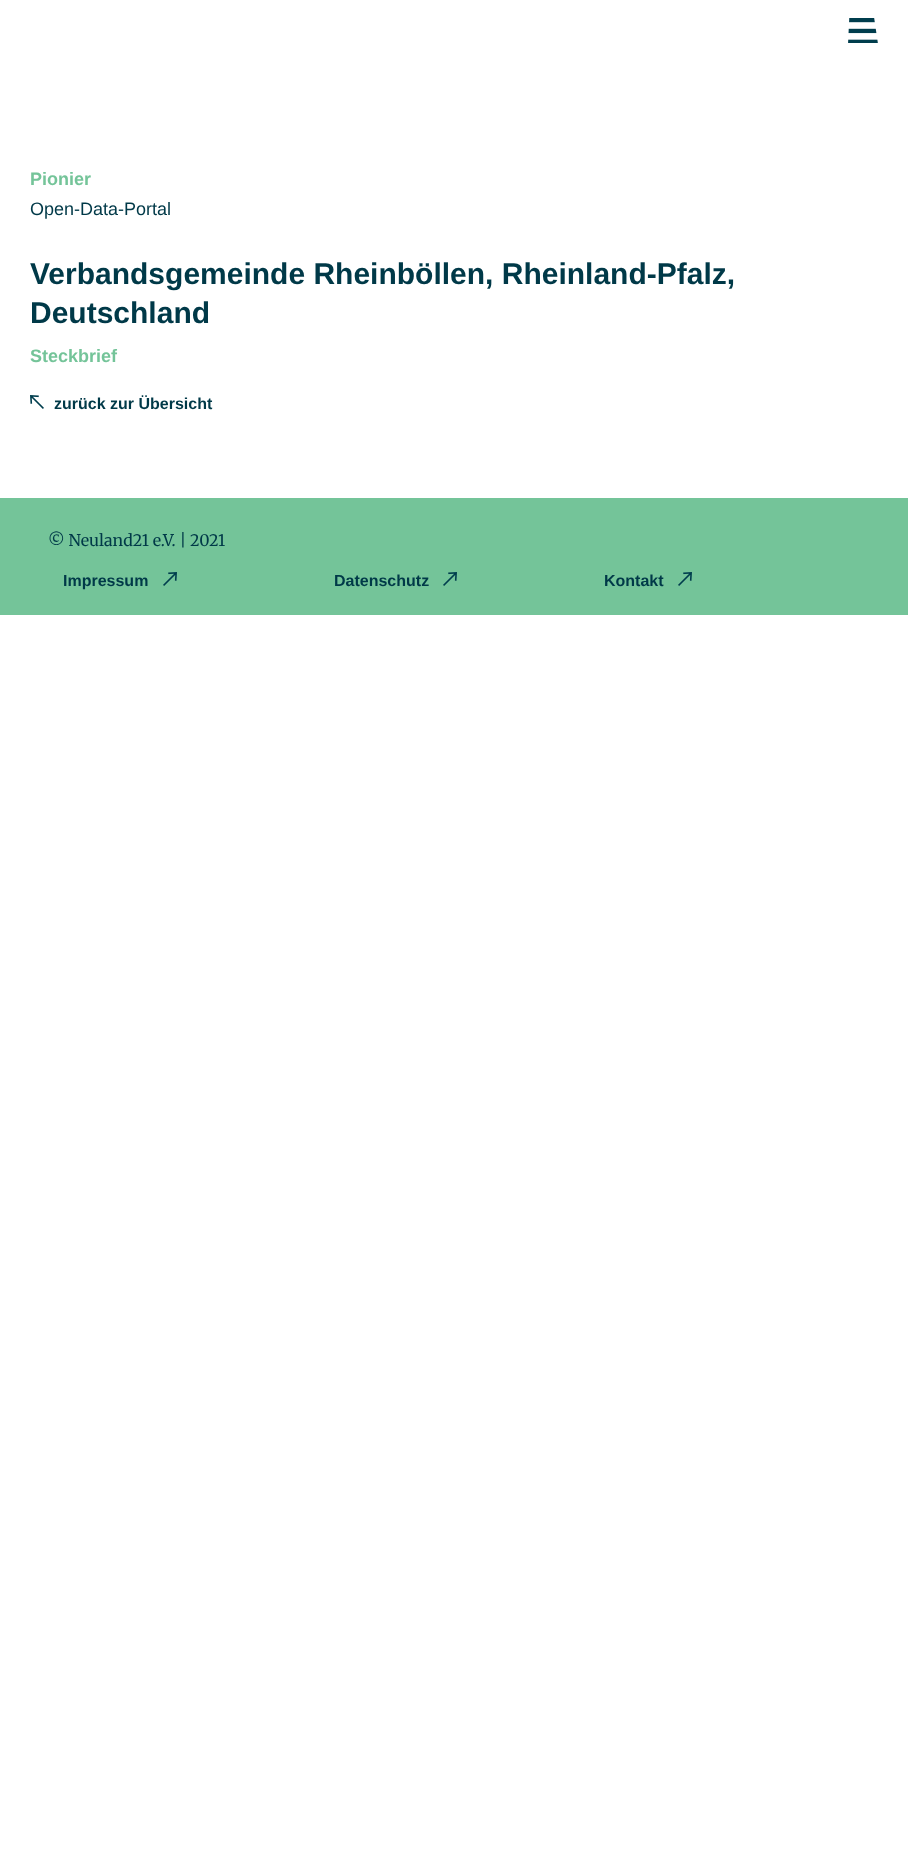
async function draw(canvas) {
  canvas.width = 908
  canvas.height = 1866
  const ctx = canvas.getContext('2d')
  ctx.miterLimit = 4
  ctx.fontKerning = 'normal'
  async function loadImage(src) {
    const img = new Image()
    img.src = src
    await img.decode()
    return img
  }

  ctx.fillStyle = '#fff'
  ctx.fillRect(0, 0, 908, 1866)
  ctx.drawImage(await loadImage('image0.png'), 848, 18, 30, 25)
  ctx.font = 'bold 18px Liberation Sans'
  ctx.fillStyle = '#74c499'
  ctx.fillText('Pionier', 30, 185)
  ctx.font = '18px Liberation Sans'
  ctx.fillStyle = '#003948'
  ctx.fillText('Open-Data-Portal', 30, 215)
  ctx.font = 'bold 30px Liberation Sans'
  ctx.fillText('Verbandsgemeinde Rheinböllen, Rheinland-Pfalz,', 30, 284)
  ctx.fillText('Deutschland', 30, 323)
  ctx.font = 'bold 18px Liberation Sans'
  ctx.fillStyle = '#74c499'
  ctx.fillText('Steckbrief', 30, 362)
  ctx.drawImage(await loadImage('image1.png'), 30, 395, 14, 14)
  ctx.font = 'bold 16px Liberation Sans'
  ctx.fillStyle = '#003948'
  ctx.fillText('zurück zur Übersicht', 54, 409)
  ctx.fillStyle = '#74c499'
  ctx.fillRect(0, 498, 908, 117)
  ctx.font = '16px Merriweather'
  ctx.fillStyle = '#003948'
  ctx.fillText('© Neuland21 e.V. | 2021', 48, 546)
  ctx.font = 'bold 16px Liberation Sans'
  ctx.fillText('Impressum', 63, 586)
  ctx.drawImage(await loadImage('image2.png'), 163, 572, 14, 14)
  ctx.fillText('Datenschutz', 334, 586)
  ctx.drawImage(await loadImage('image2.png'), 443, 572, 14, 14)
  ctx.fillText('Kontakt', 604, 586)
  ctx.drawImage(await loadImage('image2.png'), 678, 572, 14, 14)
}

draw(document.querySelector('canvas'))
